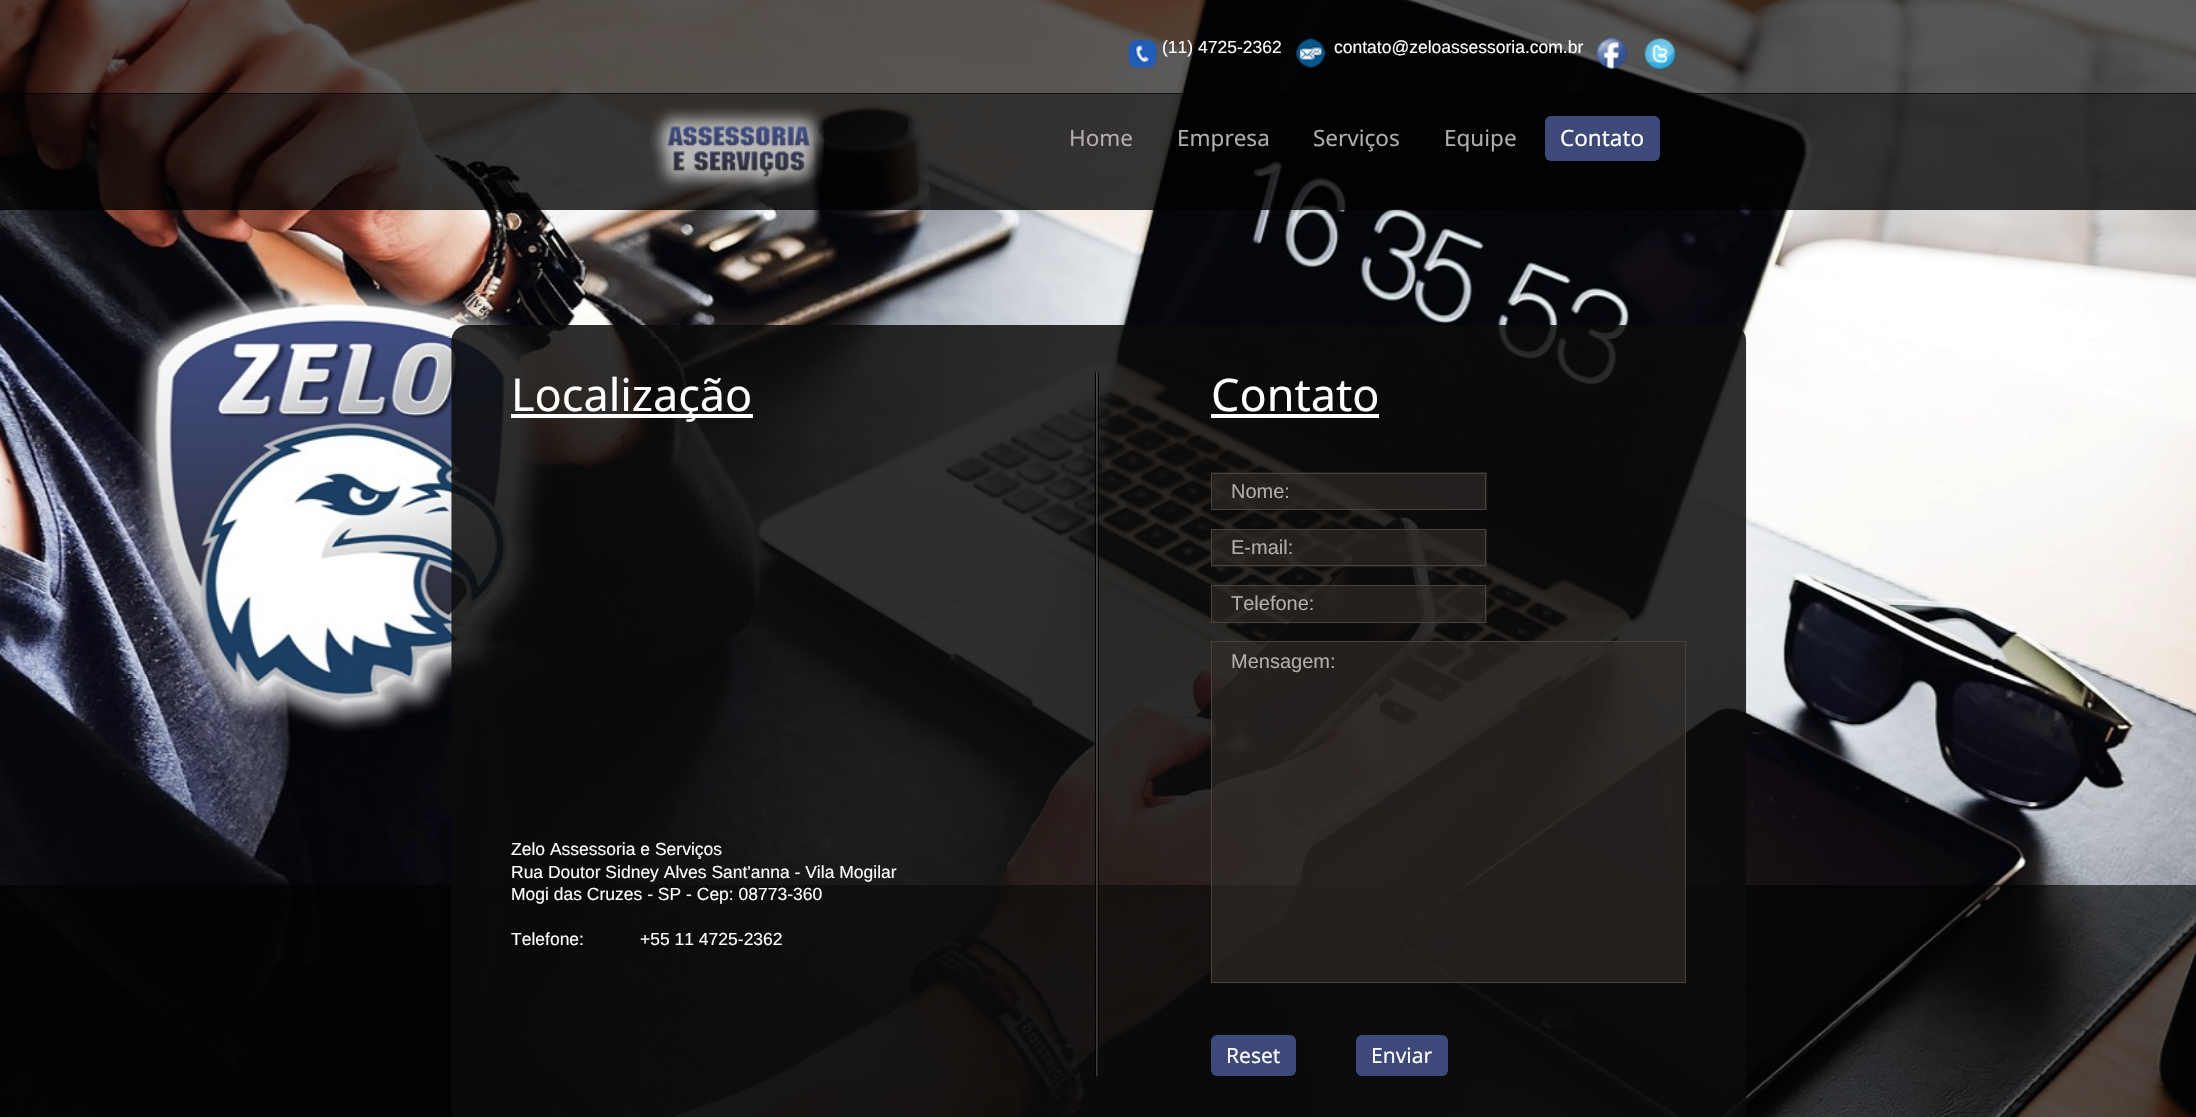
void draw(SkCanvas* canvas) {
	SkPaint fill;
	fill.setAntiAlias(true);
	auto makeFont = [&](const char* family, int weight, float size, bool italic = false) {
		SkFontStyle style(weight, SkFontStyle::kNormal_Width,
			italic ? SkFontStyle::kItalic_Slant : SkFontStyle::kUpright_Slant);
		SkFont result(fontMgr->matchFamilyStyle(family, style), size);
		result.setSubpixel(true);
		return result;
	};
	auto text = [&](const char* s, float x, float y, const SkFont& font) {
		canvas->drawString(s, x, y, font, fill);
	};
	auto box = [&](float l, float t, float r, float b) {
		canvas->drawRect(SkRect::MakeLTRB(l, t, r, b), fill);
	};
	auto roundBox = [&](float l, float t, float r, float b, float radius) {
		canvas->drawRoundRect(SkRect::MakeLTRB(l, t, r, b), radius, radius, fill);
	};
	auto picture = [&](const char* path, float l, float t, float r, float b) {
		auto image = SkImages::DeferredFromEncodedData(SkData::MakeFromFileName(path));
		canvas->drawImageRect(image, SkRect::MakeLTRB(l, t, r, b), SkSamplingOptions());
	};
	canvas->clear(0xFFFFFFFF);
	picture("image0.png", 0, 0, 2196, 1117);
	fill.setColor(0xA1000000);
	box(0, 885, 2196, 1117);
	box(0, 0, 2196, 94);
	picture("image1.png", 1128, 39, 1157, 68);
	picture("image2.png", 1296, 38, 1326, 68);
	picture("image3.png", 1596, 37, 1628, 69);
	picture("image4.png", 1644, 37, 1677, 70);
	fill.setColor(0xC9000000);
	box(0, 93, 2196, 210);
	picture("image5.png", 650, 107, 824, 194);
	fill.setColor(0xFF3D4A79);
	roundBox(1545, 116, 1660, 161, 6);
	picture("image6.png", 451, 325, 1747, 1117);
	picture("image7.png", 1095, 372, 1099, 1077);
	fill.setColor(0xFFFFFFFF);
	box(511, 414, 753, 418);
	box(1211, 414, 1379, 418);
	fill.setColor(0xA1302B28);
	box(1211, 472, 1487, 510);
	fill.setStyle(SkPaint::kStroke_Style);
	fill.setStrokeWidth(1);
	fill.setColor(0xFF49413D);
	canvas->drawRect(SkRect::MakeLTRB(1211.5f, 473.5f, 1485.5f, 509.5f), fill);
	fill.setStyle(SkPaint::kFill_Style);
	fill.setColor(0xA1302B28);
	box(1211, 529, 1487, 567);
	fill.setStyle(SkPaint::kStroke_Style);
	fill.setColor(0xFF49413D);
	canvas->drawRect(SkRect::MakeLTRB(1211.5f, 529.5f, 1485.5f, 565.5f), fill);
	fill.setStyle(SkPaint::kFill_Style);
	fill.setColor(0xA1302B28);
	box(1212, 585, 1487, 623);
	fill.setStyle(SkPaint::kStroke_Style);
	fill.setColor(0xFF49413D);
	canvas->drawRect(SkRect::MakeLTRB(1211.5f, 585.5f, 1485.5f, 622.5f), fill);
	fill.setStyle(SkPaint::kFill_Style);
	fill.setColor(0xA1302B28);
	canvas->drawRect(SkRect::MakeLTRB(1211.5f, 641.5f, 1685.5f, 982.5f), fill);
	fill.setStyle(SkPaint::kStroke_Style);
	fill.setColor(0xFF49413D);
	canvas->drawRect(SkRect::MakeLTRB(1211.5f, 641.5f, 1685.5f, 982.5f), fill);
	fill.setStyle(SkPaint::kFill_Style);
	fill.setColor(0xFF3D4A79);
	roundBox(1211, 1035, 1296, 1076, 6);
	roundBox(1356, 1035, 1448, 1076, 6);
	auto font1 = makeFont("Liberation Sans", 400, 17.5f);
	fill.setColor(0xFFFFFFFF);
	text("(11) 4725-2362", 1162, 53, font1);
	text("contato@zeloassessoria.com.br", 1334, 53, font1);
	auto font2 = makeFont("Noto Sans", 400, 22.5f);
	fill.setColor(0xFFB0ADAC);
	text("Home", 1069, 146, font2);
	text("Empresa", 1177, 146, font2);
	text("Serviços", 1313, 146, font2);
	text("Equipe", 1444, 146, font2);
	fill.setColor(0xFFFFFFFF);
	text("Contato", 1560, 146, font2);
	auto font3 = makeFont("Noto Sans", 400, 45);
	text("Localização", 511, 411, font3);
	text("Zelo Assessoria e Serviços", 511, 855, font1);
	text("Rua Doutor Sidney Alves Sant'anna - Vila Mogilar", 511, 878, font1);
	text("Mogi das Cruzes - SP - Cep: 08773-360", 511, 900, font1);
	text("Telefone:", 511, 945, font1);
	text("+55 11 4725-2362", 640, 945, font1);
	text("Contato", 1211, 411, font3);
	auto font4 = makeFont("Liberation Sans", 400, 20);
	fill.setColor(0xFFB0ADAC);
	text("Nome:", 1231, 498, font4);
	text("E-mail:", 1231, 554, font4);
	text("Telefone:", 1231, 610, font4);
	text("Mensagem:", 1231, 668, font4);
	auto font5 = makeFont("Noto Sans", 400, 21);
	fill.setColor(0xFFFFFFFF);
	text("Reset", 1226, 1063, font5);
	text("Enviar", 1371, 1063, font5);
}
